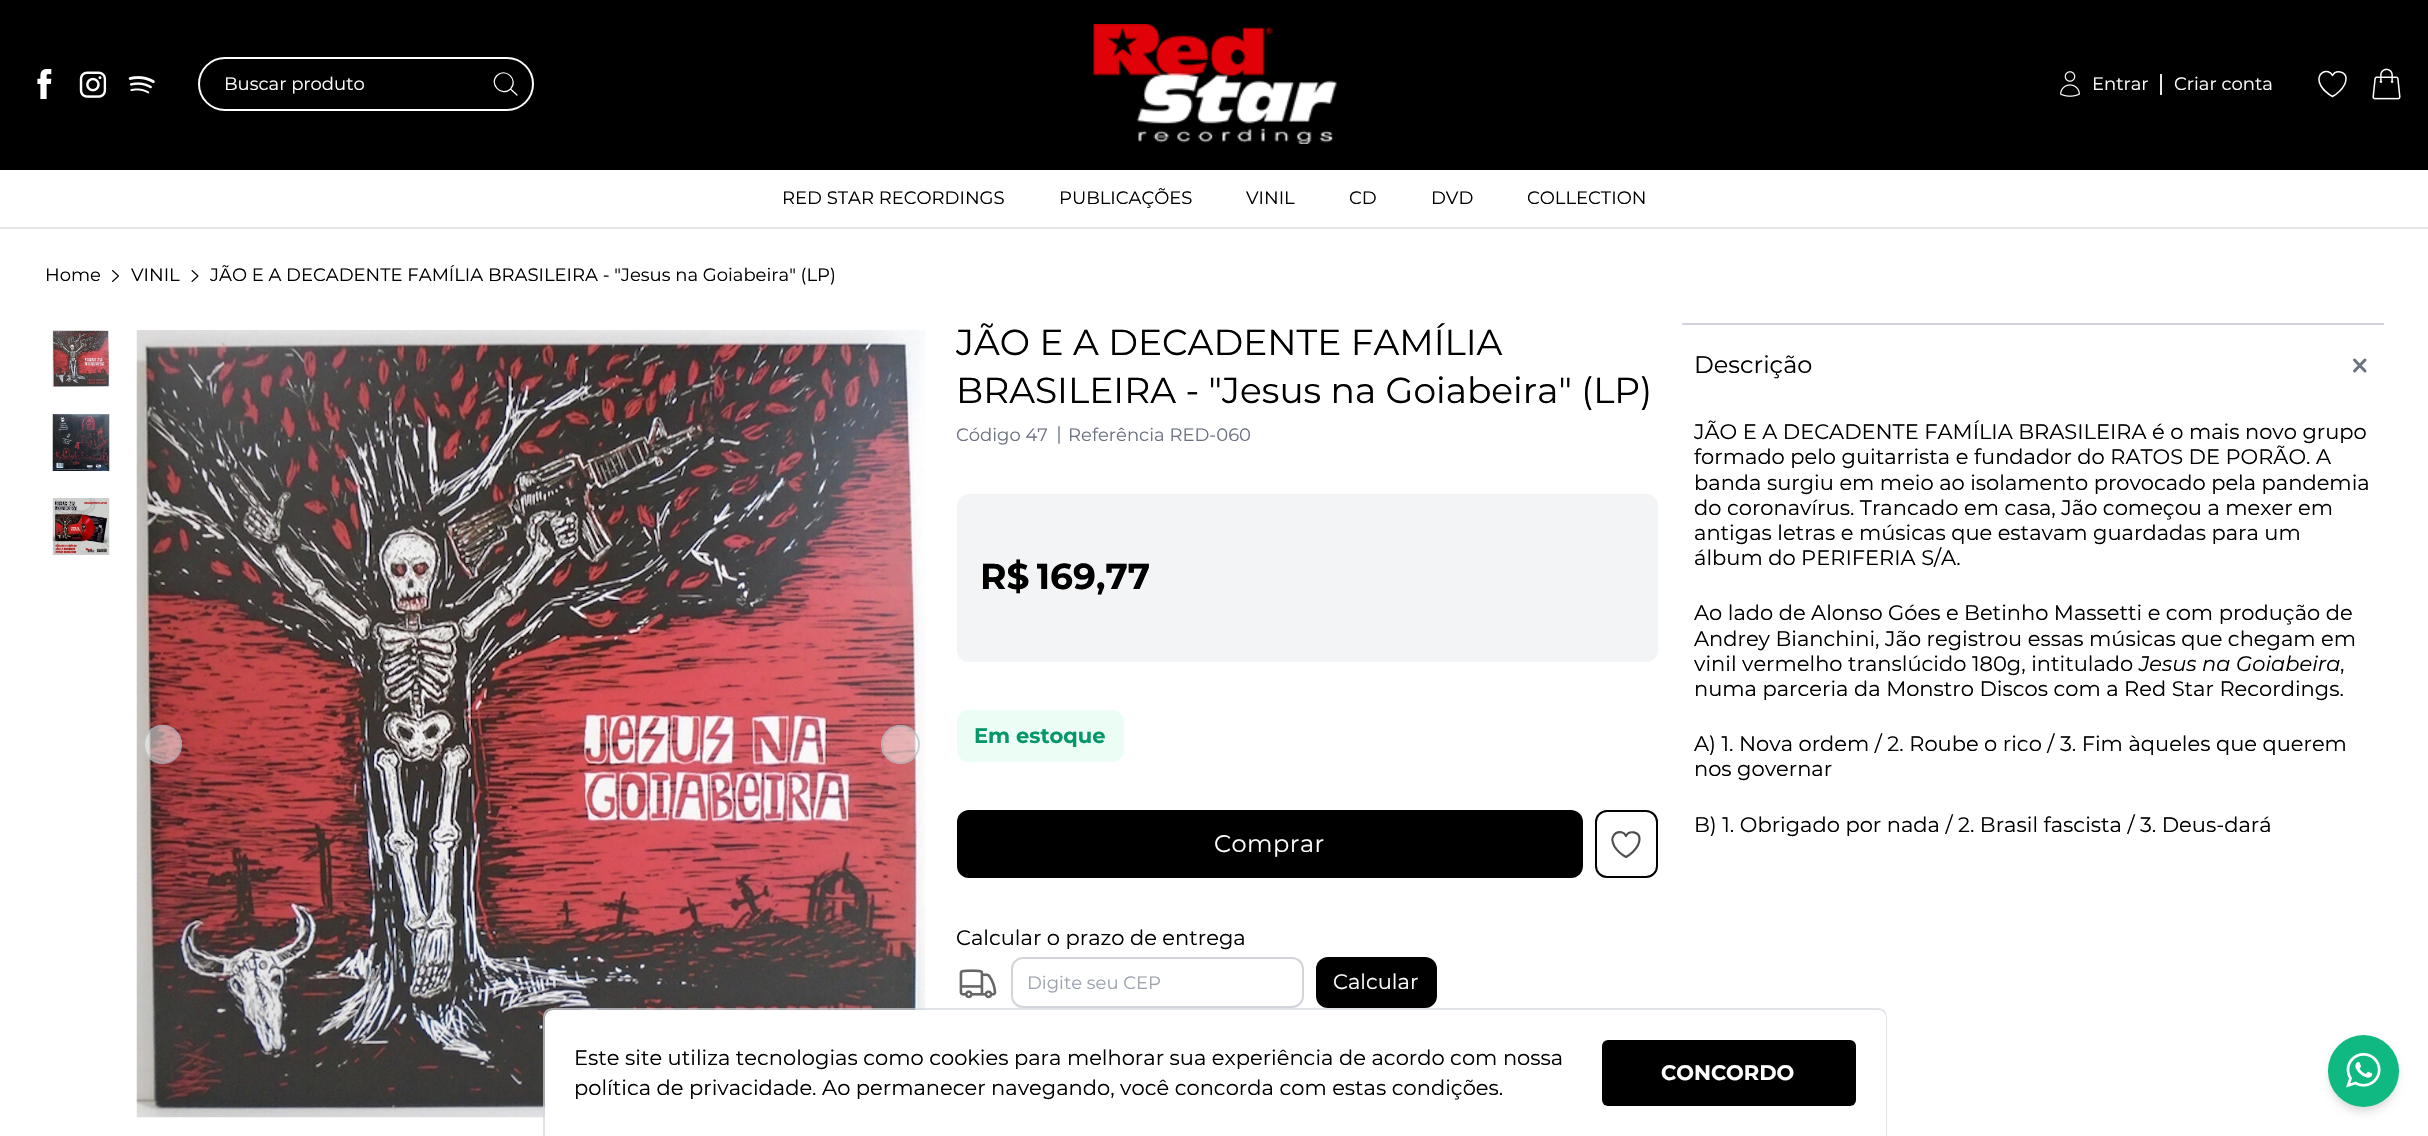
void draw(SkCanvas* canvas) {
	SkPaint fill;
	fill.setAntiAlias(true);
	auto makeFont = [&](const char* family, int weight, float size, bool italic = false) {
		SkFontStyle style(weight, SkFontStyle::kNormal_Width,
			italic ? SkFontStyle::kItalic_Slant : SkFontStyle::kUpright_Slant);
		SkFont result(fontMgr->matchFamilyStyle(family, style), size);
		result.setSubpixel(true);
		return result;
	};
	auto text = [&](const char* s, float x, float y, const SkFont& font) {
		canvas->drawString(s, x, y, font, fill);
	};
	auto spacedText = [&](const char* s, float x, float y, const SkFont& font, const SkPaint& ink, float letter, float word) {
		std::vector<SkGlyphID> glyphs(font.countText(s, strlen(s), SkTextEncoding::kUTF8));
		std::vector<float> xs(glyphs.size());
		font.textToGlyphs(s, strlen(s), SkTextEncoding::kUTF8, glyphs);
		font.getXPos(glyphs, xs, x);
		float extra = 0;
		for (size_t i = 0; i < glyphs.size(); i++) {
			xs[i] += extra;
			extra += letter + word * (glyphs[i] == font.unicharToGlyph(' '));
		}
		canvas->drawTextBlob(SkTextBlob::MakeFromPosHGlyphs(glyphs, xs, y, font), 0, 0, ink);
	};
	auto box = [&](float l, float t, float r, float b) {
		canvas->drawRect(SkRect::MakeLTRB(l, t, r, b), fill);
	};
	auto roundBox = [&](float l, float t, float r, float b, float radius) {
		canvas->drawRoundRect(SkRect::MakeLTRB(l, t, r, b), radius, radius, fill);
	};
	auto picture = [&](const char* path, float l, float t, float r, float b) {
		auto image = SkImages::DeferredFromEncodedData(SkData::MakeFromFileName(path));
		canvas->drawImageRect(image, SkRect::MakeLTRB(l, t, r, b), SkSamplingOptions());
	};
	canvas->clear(0xFFFFFFFF);
	fill.setColor(0xFF000000);
	box(0, 0, 2428, 170);
	picture("image0.png", 37, 69, 52, 99);
	picture("image1.png", 79, 71, 107, 98);
	picture("image2.png", 128, 76, 155, 94);
	fill.setStyle(SkPaint::kStroke_Style);
	fill.setStrokeWidth(2);
	fill.setColor(0xFFFFFFFF);
	canvas->drawRoundRect(SkRect::MakeLTRB(199, 58, 533, 110), 26, 26, fill);
	fill.setStrokeWidth(1.2f);
	fill.setStrokeCap(SkPaint::kRound_Cap);
	fill.setStrokeJoin(SkPaint::kRound_Join);
	canvas->drawPath(SkPathBuilder().moveTo(517, 95).lineTo(510.5f, 89).moveTo(510.5f, 89).cubicTo(519, 80, 505.5f, 67, 497, 75.5f).cubicTo(488.5f, 84, 501.5f, 97.5f, 510.5f, 89).close().detach(), fill);
	picture("image3.png", 1093, 24, 1337, 144);
	picture("image4.png", 2060, 71, 2080, 97);
	fill.setStyle(SkPaint::kFill_Style);
	fill.setColor(0xFFE5E7EB);
	box(2160, 74, 2162, 95);
	fill.setStyle(SkPaint::kStroke_Style);
	fill.setStrokeWidth(1.5f);
	fill.setColor(0xFFFFFFFF);
	canvas->drawPath(SkPathBuilder().moveTo(2346, 78.5f).cubicTo(2346, 71, 2335.5f, 69.5f, 2332.5f, 75.5f).cubicTo(2329, 67.5f, 2313.5f, 72, 2321, 86).cubicTo(2323.5f, 90, 2328, 94, 2332.5f, 96.5f).cubicTo(2332.5f, 96.5f, 2346, 89, 2346, 78.5f).close().detach(), fill);
	picture("image5.png", 2372, 68, 2401, 100);
	fill.setStyle(SkPaint::kFill_Style);
	fill.setColor(0xFFE5E7EB);
	box(0, 227, 2428, 229);
	fill.setStyle(SkPaint::kStroke_Style);
	fill.setStrokeWidth(1.1f);
	fill.setColor(0xFF000000);
	canvas->drawPath(SkPathBuilder().moveTo(112.5f, 270.5f).lineTo(118.5f, 276).lineTo(112.5f, 281.5f).detach(), fill);
	canvas->drawPath(SkPathBuilder().moveTo(192, 270.5f).lineTo(198, 276).lineTo(192, 281.5f).detach(), fill);
	picture("image6.png", 52, 330, 110, 387);
	picture("image7.png", 52, 414, 110, 471);
	picture("image8.png", 52, 498, 110, 555);
	picture("image9.png", 136, 330, 926, 1118);
	fill.setStyle(SkPaint::kFill_Style);
	fill.setColor(0x80FFFFFF);
	canvas->drawCircle(162.5f, 744.5f, 19.5f, fill);
	fill.setStyle(SkPaint::kStroke_Style);
	fill.setStrokeWidth(2);
	fill.setStrokeCap(SkPaint::kButt_Cap);
	fill.setStrokeJoin(SkPaint::kMiter_Join);
	fill.setColor(0x809CA3AF);
	canvas->drawCircle(162.5f, 744.5f, 18.5f, fill);
	fill.setStyle(SkPaint::kFill_Style);
	fill.setColor(0x80FFFFFF);
	canvas->drawCircle(900.5f, 744.5f, 19.5f, fill);
	fill.setStyle(SkPaint::kStroke_Style);
	fill.setColor(0x809CA3AF);
	canvas->drawCircle(900.5f, 744.5f, 18.5f, fill);
	fill.setStyle(SkPaint::kFill_Style);
	fill.setColor(0xFF9CA3AF);
	roundBox(1058, 426, 1060, 444, 1);
	fill.setColor(0xFFF3F4F6);
	roundBox(957, 494, 1658, 662, 12);
	fill.setColor(0xFFECFDF5);
	roundBox(957, 710, 1124, 762, 12);
	fill.setColor(0xFF000000);
	roundBox(957, 810, 1583, 878, 12);
	fill.setStyle(SkPaint::kStroke_Style);
	canvas->drawRoundRect(SkRect::MakeLTRB(1596, 811, 1657, 877), 11, 11, fill);
	fill.setStrokeWidth(2.2f);
	fill.setStrokeCap(SkPaint::kRound_Cap);
	fill.setStrokeJoin(SkPaint::kRound_Join);
	fill.setColor(0xFF4D4D4D);
	canvas->drawPath(SkPathBuilder().moveTo(1639.5f, 839).cubicTo(1639.5f, 831.5f, 1629, 830, 1626, 836).cubicTo(1622.5f, 828, 1607, 832.5f, 1614.5f, 846.5f).cubicTo(1617, 850.5f, 1621.5f, 854.5f, 1626, 857).cubicTo(1626, 857, 1639.5f, 849.5f, 1639.5f, 839).close().detach(), fill);
	picture("image10.png", 959, 969, 997, 999);
	fill.setStrokeWidth(2);
	fill.setStrokeCap(SkPaint::kButt_Cap);
	fill.setStrokeJoin(SkPaint::kMiter_Join);
	fill.setColor(0xFFD1D5DB);
	canvas->drawRoundRect(SkRect::MakeLTRB(1012, 958, 1303, 1007), 11, 11, fill);
	fill.setStyle(SkPaint::kFill_Style);
	fill.setColor(0xFF000000);
	roundBox(1316, 957, 1437, 1008, 12);
	fill.setColor(0xFFD1D5DB);
	box(1682, 323, 2384, 325);
	fill.setStyle(SkPaint::kStroke_Style);
	fill.setStrokeWidth(3);
	fill.setStrokeCap(SkPaint::kRound_Cap);
	fill.setStrokeJoin(SkPaint::kRound_Join);
	fill.setColor(0xFF6B7280);
	canvas->drawPath(SkPathBuilder().moveTo(2354.5f, 371).lineTo(2365, 360).moveTo(2354.5f, 360).lineTo(2365, 371).detach(), fill);
	fill.setStrokeWidth(2);
	fill.setStrokeCap(SkPaint::kButt_Cap);
	fill.setStrokeJoin(SkPaint::kMiter_Join);
	fill.setColor(0xB3D1D5DB);
	canvas->drawPath(SkPathBuilder().moveTo(552, 1009).lineTo(1878, 1009).cubicTo(1882.5f, 1009, 1886, 1012.5f, 1886, 1017).lineTo(1886, 1136).lineTo(544, 1136).lineTo(544, 1017).cubicTo(544, 1012.5f, 547.5f, 1009, 552, 1009).close().detach(), fill);
	fill.setStyle(SkPaint::kFill_Style);
	fill.setColor(0xFFFFFFFF);
	canvas->drawPath(SkPathBuilder().moveTo(553, 1010).lineTo(1878, 1010).cubicTo(1882.5f, 1010, 1886, 1013.5f, 1886, 1018).lineTo(1886, 1136).lineTo(545, 1136).lineTo(545, 1018).cubicTo(545, 1013.5f, 548.5f, 1010, 553, 1010).close().detach(), fill);
	fill.setColor(0xFF000000);
	roundBox(1602, 1040, 1856, 1106, 6);
	fill.setColor(0x0F000000);
	fill.setMaskFilter(SkMaskFilter::MakeBlur(kNormal_SkBlurStyle, 3));
	canvas->drawRoundRect(SkRect::MakeLTRB(2330, 1040, 2397, 1109), 33.5f, 33.5f, fill);
	fill.setMaskFilter(nullptr);
	fill.setColor(0x1A000000);
	fill.setMaskFilter(SkMaskFilter::MakeBlur(kNormal_SkBlurStyle, 4.5f));
	canvas->drawRoundRect(SkRect::MakeLTRB(2330, 1043, 2397, 1112), 33.5f, 33.5f, fill);
	fill.setMaskFilter(nullptr);
	fill.setColor(0xFF10B981);
	roundBox(2328, 1035, 2399, 1107, 35.5f);
	picture("image11.png", 2346, 1053, 2381, 1088);
	auto font1 = makeFont("Montserrat", 400, 18);
	fill.setColor(0xFFFFFFFF);
	text("Buscar produto", 224, 90, font1);
	text("Entrar", 2092, 90, font1);
	text("Criar conta", 2174, 90, font1);
	fill.setColor(0xFF000000);
	text("RED STAR RECORDINGS", 782, 204, font1);
	text("PUBLICAÇÕES", 1059, 204, font1);
	text("VINIL", 1246, 204, font1);
	text("CD", 1349, 204, font1);
	text("DVD", 1431, 204, font1);
	text("COLLECTION", 1527, 204, font1);
	text("Home", 45, 281, font1);
	text("VINIL", 131, 281, font1);
	text("JÃO E A DECADENTE FAMÍLIA BRASILEIRA - \"Jesus na Goiabeira\" (LP)", 210, 281, font1);
	auto font2 = makeFont("Montserrat", 400, 36);
	text("JÃO E A DECADENTE FAMÍLIA", 956, 355, font2);
	text("BRASILEIRA - \"Jesus na Goiabeira\" (LP)", 956, 403, font2);
	fill.setColor(0xFF6B7280);
	text("Código 47", 956, 441, font1);
	text("Referência RED-060", 1068, 441, font1);
	auto font3 = makeFont("Montserrat", 700, 36);
	fill.setColor(0xFF000000);
	text("R$", 980, 589, font3);
	canvas->save();
	canvas->clipRect(SkRect::MakeLTRB(1037, 557, 1151, 600));
	text("169,77", 1036, 589, font3);
	canvas->restore();
	auto font4 = makeFont("Montserrat", 700, 21);
	fill.setColor(0xFF059669);
	text("Em estoque", 974, 743, font4);
	auto font5 = makeFont("Montserrat", 400, 24);
	fill.setColor(0xFFFFFFFF);
	spacedText("Comprar", 1214, 852, font5, fill, 0.5f, 0);
	auto font6 = makeFont("Montserrat", 400, 21);
	fill.setColor(0xFF000000);
	text("Calcular o prazo de entrega", 956, 945, font6);
	fill.setColor(0xFF9CA3AF);
	text("Digite seu CEP", 1027, 989, font1);
	fill.setColor(0xFFFFFFFF);
	text("Calcular", 1333, 989, font6);
	fill.setColor(0xFF000000);
	text("Descrição", 1694, 373, font5);
	text("JÃO E A DECADENTE FAMÍLIA BRASILEIRA é o mais novo grupo", 1694, 439, font6);
	text("formado pelo guitarrista e fundador do RATOS DE PORÃO. A", 1694, 464, font6);
	text("banda surgiu em meio ao isolamento provocado pela pandemia", 1694, 490, font6);
	text("do coronavírus. Trancado em casa, Jão começou a mexer em", 1694, 515, font6);
	text("antigas letras e músicas que estavam guardadas para um", 1694, 540, font6);
	text("álbum do PERIFERIA S/A.", 1694, 565, font6);
	text("Ao lado de Alonso Góes e Betinho Massetti e com produção de", 1694, 620, font6);
	text("Andrey Bianchini, Jão registrou essas músicas que chegam em", 1694, 646, font6);
	text("vinil vermelho translúcido 180g, intitulado", 1694, 671, font6);
	auto font7 = makeFont("Montserrat", 400, 21, true);
	text("Jesus na Goiabeira", 2139, 671, font7);
	text(",", 2340, 671, font6);
	text("numa parceria da Monstro Discos com a Red Star Recordings.", 1694, 696, font6);
	text("A) 1. Nova ordem / 2. Roube o rico / 3. Fim àqueles que querem", 1694, 751, font6);
	text("nos governar", 1694, 776, font6);
	text("B) 1. Obrigado por nada / 2. Brasil fascista / 3. Deus-dará", 1694, 832, font6);
	text("Este site utiliza tecnologias como cookies para melhorar sua experiência de acordo com nossa", 574, 1065, font6);
	text("política de privacidade. Ao permanecer navegando, você concorda com estas condições.", 574, 1095, font6);
	fill.setColor(0xFFFFFFFF);
	text("CONCORDO", 1661, 1080, font4);
}
